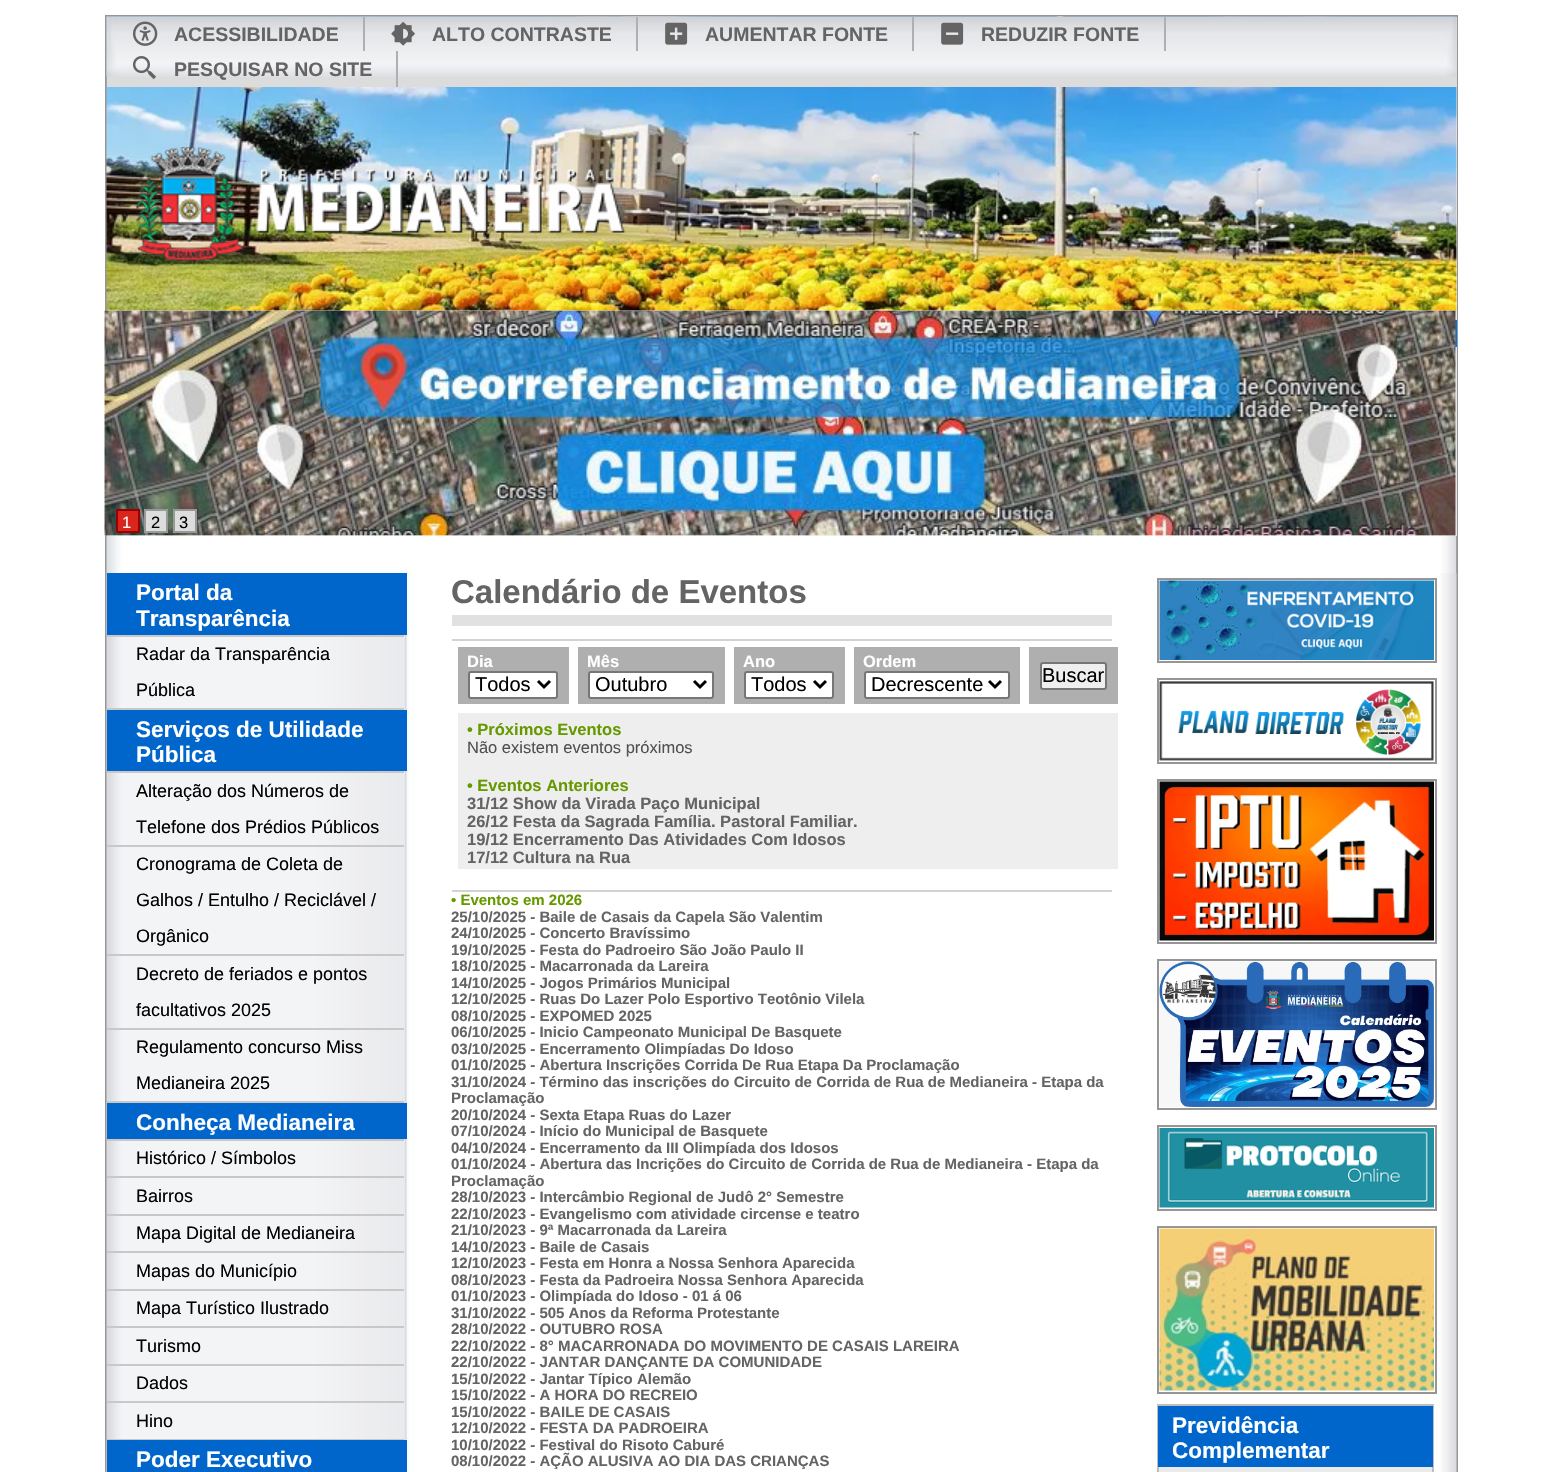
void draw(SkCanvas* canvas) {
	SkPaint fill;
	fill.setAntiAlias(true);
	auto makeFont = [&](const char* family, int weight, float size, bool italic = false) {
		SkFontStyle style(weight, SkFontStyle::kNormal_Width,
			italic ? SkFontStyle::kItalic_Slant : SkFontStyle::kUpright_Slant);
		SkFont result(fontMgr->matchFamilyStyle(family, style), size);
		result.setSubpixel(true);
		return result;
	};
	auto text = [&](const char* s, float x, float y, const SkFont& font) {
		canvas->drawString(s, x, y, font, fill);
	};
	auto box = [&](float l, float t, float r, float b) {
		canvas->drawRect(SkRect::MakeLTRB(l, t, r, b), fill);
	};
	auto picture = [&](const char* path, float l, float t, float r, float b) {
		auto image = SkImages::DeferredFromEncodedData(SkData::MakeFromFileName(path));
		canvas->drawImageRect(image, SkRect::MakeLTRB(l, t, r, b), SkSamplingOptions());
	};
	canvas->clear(0xFFFFFFFF);
	fill.setStyle(SkPaint::kStroke_Style);
	fill.setStrokeWidth(2);
	fill.setColor(0xFF969696);
	canvas->drawRect(SkRect::MakeLTRB(106, 16, 1457, 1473), fill);
	fill.setStyle(SkPaint::kFill_Style);
	fill.setColor(0xFFF0F0F0);
	box(107, 87, 1457, 311);
	picture("image0.png", 106, 16, 1457, 311);
	fill.setColor(0xFFDCDCDC);
	box(107, 17, 1457, 87);
	picture("image1.png", 106, 16, 1457, 77);
	fill.setColor(0xFFAFAFAF);
	box(363, 17, 365, 51);
	picture("image2.png", 132, 21, 158, 46);
	box(636, 17, 638, 51);
	picture("image3.png", 391, 21, 415, 46);
	box(912, 17, 914, 51);
	picture("image4.png", 665, 22, 688, 45);
	box(1164, 17, 1166, 51);
	picture("image5.png", 941, 22, 964, 45);
	box(396, 51, 398, 87);
	picture("image6.png", 132, 56, 156, 80);
	picture("image7.png", 136, 147, 626, 262);
	fill.setColor(0xFFE6E6E6);
	box(107, 311, 1457, 536);
	fill.setColor(0xFF0B73CF);
	box(1455, 320, 1457, 347);
	fill.setColor(0xFF646464);
	box(1456, 536, 1457, 573);
	picture("image9.png", 106, 535, 1457, 573);
	picture("image8.png", 104, 310, 1456, 536);
	fill.setColor(0xFFDA251C);
	canvas->drawRect(SkRect::MakeLTRB(117, 510, 139, 532), fill);
	fill.setStyle(SkPaint::kStroke_Style);
	fill.setColor(0xFF990000);
	canvas->drawRect(SkRect::MakeLTRB(117, 510, 139, 532), fill);
	fill.setStyle(SkPaint::kFill_Style);
	fill.setColor(0xFFDDDDDD);
	canvas->drawRect(SkRect::MakeLTRB(145, 510, 167, 532), fill);
	fill.setStyle(SkPaint::kStroke_Style);
	fill.setColor(0xFF999999);
	canvas->drawRect(SkRect::MakeLTRB(145, 510, 167, 532), fill);
	fill.setStyle(SkPaint::kFill_Style);
	fill.setColor(0xFFDDDDDD);
	canvas->drawRect(SkRect::MakeLTRB(174, 510, 196, 532), fill);
	fill.setStyle(SkPaint::kStroke_Style);
	fill.setColor(0xFF999999);
	canvas->drawRect(SkRect::MakeLTRB(174, 510, 196, 532), fill);
	picture("image10.png", 106, 573, 1457, 1472);
	fill.setStyle(SkPaint::kFill_Style);
	fill.setColor(0xFF0066CC);
	box(107, 573, 407, 635);
	fill.setColor(0xFFC8C8C8);
	box(107, 708, 404, 710);
	box(107, 635, 404, 637);
	fill.setColor(0xFF0066CC);
	box(107, 710, 407, 771);
	fill.setColor(0xFFC8C8C8);
	box(107, 1101, 404, 1103);
	box(107, 771, 404, 773);
	box(107, 845, 404, 847);
	box(107, 954, 404, 956);
	box(107, 1028, 404, 1030);
	fill.setColor(0xFF0066CC);
	box(107, 1103, 407, 1139);
	fill.setColor(0xFFC8C8C8);
	box(107, 1439, 404, 1440);
	box(107, 1139, 404, 1141);
	box(107, 1176, 404, 1178);
	box(107, 1214, 404, 1216);
	box(107, 1251, 404, 1253);
	box(107, 1289, 404, 1291);
	box(107, 1326, 404, 1328);
	box(107, 1364, 404, 1366);
	box(107, 1401, 404, 1403);
	fill.setColor(0xFF0066CC);
	box(107, 1440, 407, 1472);
	fill.setColor(0xFFE1E1E1);
	box(452, 615, 1112, 626);
	fill.setColor(0xFFD2D2D2);
	box(452, 639, 1112, 641);
	fill.setColor(0xFFAFAFAF);
	box(458, 647, 569, 704);
	fill.setColor(0xFFFFFFFF);
	canvas->drawRoundRect(SkRect::MakeLTRB(469, 672, 557, 698), 2, 2, fill);
	fill.setStyle(SkPaint::kStroke_Style);
	fill.setColor(0xFF767676);
	canvas->drawRoundRect(SkRect::MakeLTRB(469, 672, 557, 698), 2, 2, fill);
	fill.setStrokeWidth(3);
	fill.setColor(0xFF000000);
	canvas->drawPath(SkPathBuilder().moveTo(538, 681).lineTo(544, 687).lineTo(550, 681).detach(), fill);
	fill.setStyle(SkPaint::kFill_Style);
	fill.setColor(0xFFAFAFAF);
	box(578, 647, 725, 704);
	fill.setColor(0xFFFFFFFF);
	canvas->drawRoundRect(SkRect::MakeLTRB(589, 672, 713, 698), 2, 2, fill);
	fill.setStyle(SkPaint::kStroke_Style);
	fill.setStrokeWidth(2);
	fill.setColor(0xFF767676);
	canvas->drawRoundRect(SkRect::MakeLTRB(589, 672, 713, 698), 2, 2, fill);
	fill.setStrokeWidth(3);
	fill.setColor(0xFF000000);
	canvas->drawPath(SkPathBuilder().moveTo(694, 681).lineTo(700, 687).lineTo(706, 681).detach(), fill);
	fill.setStyle(SkPaint::kFill_Style);
	fill.setColor(0xFFAFAFAF);
	box(734, 647, 845, 704);
	fill.setColor(0xFFFFFFFF);
	canvas->drawRoundRect(SkRect::MakeLTRB(745, 672, 833, 698), 2, 2, fill);
	fill.setStyle(SkPaint::kStroke_Style);
	fill.setStrokeWidth(2);
	fill.setColor(0xFF767676);
	canvas->drawRoundRect(SkRect::MakeLTRB(745, 672, 833, 698), 2, 2, fill);
	fill.setStrokeWidth(3);
	fill.setColor(0xFF000000);
	canvas->drawPath(SkPathBuilder().moveTo(814, 681).lineTo(820, 687).lineTo(826, 681).detach(), fill);
	fill.setStyle(SkPaint::kFill_Style);
	fill.setColor(0xFFAFAFAF);
	box(854, 647, 1020, 704);
	fill.setColor(0xFFFFFFFF);
	canvas->drawRoundRect(SkRect::MakeLTRB(865, 672, 1009, 698), 2, 2, fill);
	fill.setStyle(SkPaint::kStroke_Style);
	fill.setStrokeWidth(2);
	fill.setColor(0xFF767676);
	canvas->drawRoundRect(SkRect::MakeLTRB(865, 672, 1009, 698), 2, 2, fill);
	fill.setStrokeWidth(3);
	fill.setColor(0xFF000000);
	canvas->drawPath(SkPathBuilder().moveTo(989, 681).lineTo(995, 687).lineTo(1001, 681).detach(), fill);
	fill.setStyle(SkPaint::kFill_Style);
	fill.setColor(0xFFAFAFAF);
	box(1029, 647, 1118, 704);
	fill.setColor(0xFFEFEFEF);
	canvas->drawRoundRect(SkRect::MakeLTRB(1041, 663, 1106, 689), 2, 2, fill);
	fill.setStyle(SkPaint::kStroke_Style);
	fill.setStrokeWidth(2);
	fill.setColor(0xFF767676);
	canvas->drawRoundRect(SkRect::MakeLTRB(1041, 663, 1106, 689), 2, 2, fill);
	fill.setStyle(SkPaint::kFill_Style);
	fill.setColor(0xFFEEEEEE);
	box(458, 713, 1118, 869);
	fill.setColor(0xFFD2D2D2);
	box(452, 890, 1112, 892);
	fill.setStyle(SkPaint::kStroke_Style);
	fill.setColor(0xFF969696);
	canvas->drawRect(SkRect::MakeLTRB(1158, 579, 1436, 662), fill);
	picture("image11.png", 1159, 580, 1434, 660);
	canvas->drawRect(SkRect::MakeLTRB(1158, 679, 1436, 763), fill);
	picture("image12.png", 1159, 681, 1434, 761);
	canvas->drawRect(SkRect::MakeLTRB(1158, 780, 1436, 943), fill);
	picture("image13.png", 1159, 781, 1434, 941);
	canvas->drawRect(SkRect::MakeLTRB(1158, 960, 1436, 1109), fill);
	picture("image14.png", 1159, 961, 1434, 1107);
	canvas->drawRect(SkRect::MakeLTRB(1158, 1126, 1436, 1210), fill);
	picture("image15.png", 1159, 1128, 1434, 1208);
	canvas->drawRect(SkRect::MakeLTRB(1158, 1227, 1436, 1393), fill);
	picture("image16.png", 1159, 1228, 1434, 1391);
	fill.setStyle(SkPaint::kFill_Style);
	fill.setColor(0xFFEBEBEB);
	box(1159, 1467, 1432, 1472);
	fill.setStyle(SkPaint::kStroke_Style);
	fill.setColor(0xFFBEBEBE);
	canvas->drawRect(SkRect::MakeLTRB(1158, 1405, 1433, 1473), fill);
	fill.setStyle(SkPaint::kFill_Style);
	fill.setColor(0xFF0066CC);
	box(1158, 1406, 1433, 1467);
	auto font1 = makeFont("Liberation Sans", 700, 19.5f);
	fill.setColor(0xFF646464);
	text("ACESSIBILIDADE", 174, 41, font1);
	text("ALTO CONTRASTE", 432, 41, font1);
	text("AUMENTAR FONTE", 705, 41, font1);
	text("REDUZIR FONTE", 981, 41, font1);
	text("PESQUISAR NO SITE", 174, 76, font1);
	auto font2 = makeFont("Liberation Sans", 400, 16.5f);
	fill.setColor(0xFFFFFFFF);
	text("1", 122, 528, font2);
	fill.setColor(0xFF000000);
	text("2", 151, 528, font2);
	text("3", 179, 528, font2);
	auto font3 = makeFont("Liberation Sans", 700, 22.5f);
	fill.setColor(0xFFFFFFFF);
	text("Portal da", 136, 600, font3);
	text("Transparência", 136, 626, font3);
	auto font4 = makeFont("Liberation Sans", 400, 18);
	fill.setColor(0xFF000000);
	text("Radar da Transparência", 136, 660, font4);
	text("Pública", 136, 696, font4);
	fill.setColor(0xFFFFFFFF);
	text("Serviços de Utilidade", 136, 737, font3);
	text("Pública", 136, 762, font3);
	fill.setColor(0xFF000000);
	text("Alteração dos Números de", 136, 797, font4);
	text("Telefone dos Prédios Públicos", 136, 833, font4);
	text("Cronograma de Coleta de", 136, 870, font4);
	text("Galhos / Entulho / Reciclável /", 136, 906, font4);
	text("Orgânico", 136, 942, font4);
	text("Decreto de feriados e pontos", 136, 980, font4);
	text("facultativos 2025", 136, 1016, font4);
	text("Regulamento concurso Miss", 136, 1053, font4);
	text("Medianeira 2025", 136, 1089, font4);
	fill.setColor(0xFFFFFFFF);
	text("Conheça Medianeira", 136, 1130, font3);
	fill.setColor(0xFF000000);
	text("Histórico / Símbolos", 136, 1164, font4);
	text("Bairros", 136, 1202, font4);
	text("Mapa Digital de Medianeira", 136, 1239, font4);
	text("Mapas do Município", 136, 1277, font4);
	text("Mapa Turístico Ilustrado", 136, 1314, font4);
	text("Turismo", 136, 1352, font4);
	text("Dados", 136, 1389, font4);
	text("Hino", 136, 1427, font4);
	fill.setColor(0xFFFFFFFF);
	text("Poder Executivo", 136, 1467, font3);
	auto font5 = makeFont("Liberation Sans", 700, 33);
	fill.setColor(0xFF646464);
	text("Calendário de Eventos", 451, 603, font5);
	auto font6 = makeFont("Liberation Sans", 700, 16.5f);
	fill.setColor(0xFFFFFFFF);
	text("Dia", 467, 667, font6);
	auto font7 = makeFont("Liberation Sans", 400, 20);
	fill.setColor(0xFF000000);
	text("Todos", 475, 691, font7);
	fill.setColor(0xFFFFFFFF);
	text("Mês", 587, 667, font6);
	canvas->save();
	canvas->clipRect(SkRect::MakeLTRB(596, 672, 689, 698));
	fill.setColor(0xFF000000);
	text("Outubro", 595, 691, font7);
	canvas->restore();
	fill.setColor(0xFFFFFFFF);
	text("Ano", 743, 667, font6);
	fill.setColor(0xFF000000);
	text("Todos", 751, 691, font7);
	fill.setColor(0xFFFFFFFF);
	text("Ordem", 863, 667, font6);
	fill.setColor(0xFF000000);
	text("Decrescente", 871, 691, font7);
	text("Buscar", 1042, 682, font7);
	fill.setColor(0xFF669900);
	text("• Próximos Eventos", 467, 735, font6);
	fill.setColor(0xFF505050);
	text("Não existem eventos próximos", 467, 753, font2);
	fill.setColor(0xFF669900);
	text("• Eventos Anteriores", 467, 791, font6);
	fill.setColor(0xFF646464);
	text("31/12 Show da Virada Paço Municipal", 467, 809, font6);
	text("26/12 Festa da Sagrada Família. Pastoral Familiar.", 467, 827, font6);
	text("19/12 Encerramento Das Atividades Com Idosos", 467, 845, font6);
	text("17/12 Cultura na Rua", 467, 863, font6);
	auto font8 = makeFont("Liberation Sans", 700, 15);
	fill.setColor(0xFF669900);
	text("• Eventos em 2026", 451, 905, font8);
	fill.setColor(0xFF646464);
	text("25/10/2025 - Baile de Casais da Capela São Valentim", 451, 922, font8);
	text("24/10/2025 - Concerto Bravíssimo", 451, 938, font8);
	text("19/10/2025 - Festa do Padroeiro São João Paulo II", 451, 955, font8);
	text("18/10/2025 - Macarronada da Lareira", 451, 971, font8);
	text("14/10/2025 - Jogos Primários Municipal", 451, 988, font8);
	text("12/10/2025 - Ruas Do Lazer Polo Esportivo Teotônio Vilela", 451, 1004, font8);
	text("08/10/2025 - EXPOMED 2025", 451, 1021, font8);
	text("06/10/2025 - Inicio Campeonato Municipal De Basquete", 451, 1037, font8);
	text("03/10/2025 - Encerramento Olimpíadas Do Idoso", 451, 1054, font8);
	text("01/10/2025 - Abertura Inscrições Corrida De Rua Etapa Da Proclamação", 451, 1070, font8);
	text("31/10/2024 - Término das inscrições do Circuito de Corrida de Rua de Medianeira - Etapa da", 451, 1087, font8);
	text("Proclamação", 451, 1103, font8);
	text("20/10/2024 - Sexta Etapa Ruas do Lazer", 451, 1120, font8);
	text("07/10/2024 - Início do Municipal de Basquete", 451, 1136, font8);
	text("04/10/2024 - Encerramento da III Olimpíada dos Idosos", 451, 1153, font8);
	text("01/10/2024 - Abertura das Incrições do Circuito de Corrida de Rua de Medianeira - Etapa da", 451, 1169, font8);
	text("Proclamação", 451, 1186, font8);
	text("28/10/2023 - Intercâmbio Regional de Judô 2° Semestre", 451, 1202, font8);
	text("22/10/2023 - Evangelismo com atividade circense e teatro", 451, 1219, font8);
	text("21/10/2023 - 9ª Macarronada da Lareira", 451, 1235, font8);
	text("14/10/2023 - Baile de Casais", 451, 1252, font8);
	text("12/10/2023 - Festa em Honra a Nossa Senhora Aparecida", 451, 1268, font8);
	text("08/10/2023 - Festa da Padroeira Nossa Senhora Aparecida", 451, 1285, font8);
	text("01/10/2023 - Olimpíada do Idoso - 01 á 06", 451, 1301, font8);
	text("31/10/2022 - 505 Anos da Reforma Protestante", 451, 1318, font8);
	text("28/10/2022 - OUTUBRO ROSA", 451, 1334, font8);
	text("22/10/2022 - 8° MACARRONADA DO MOVIMENTO DE CASAIS LAREIRA", 451, 1351, font8);
	text("22/10/2022 - JANTAR DANÇANTE DA COMUNIDADE", 451, 1367, font8);
	text("15/10/2022 - Jantar Típico Alemão", 451, 1384, font8);
	text("15/10/2022 - A HORA DO RECREIO", 451, 1400, font8);
	text("15/10/2022 - BAILE DE CASAIS", 451, 1417, font8);
	text("12/10/2022 - FESTA DA PADROEIRA", 451, 1433, font8);
	text("10/10/2022 - Festival do Risoto Caburé", 451, 1450, font8);
	text("08/10/2022 - AÇÃO ALUSIVA AO DIA DAS CRIANÇAS", 451, 1466, font8);
	fill.setColor(0xFFFFFFFF);
	text("Previdência", 1172, 1433, font3);
	text("Complementar", 1172, 1458, font3);
}
